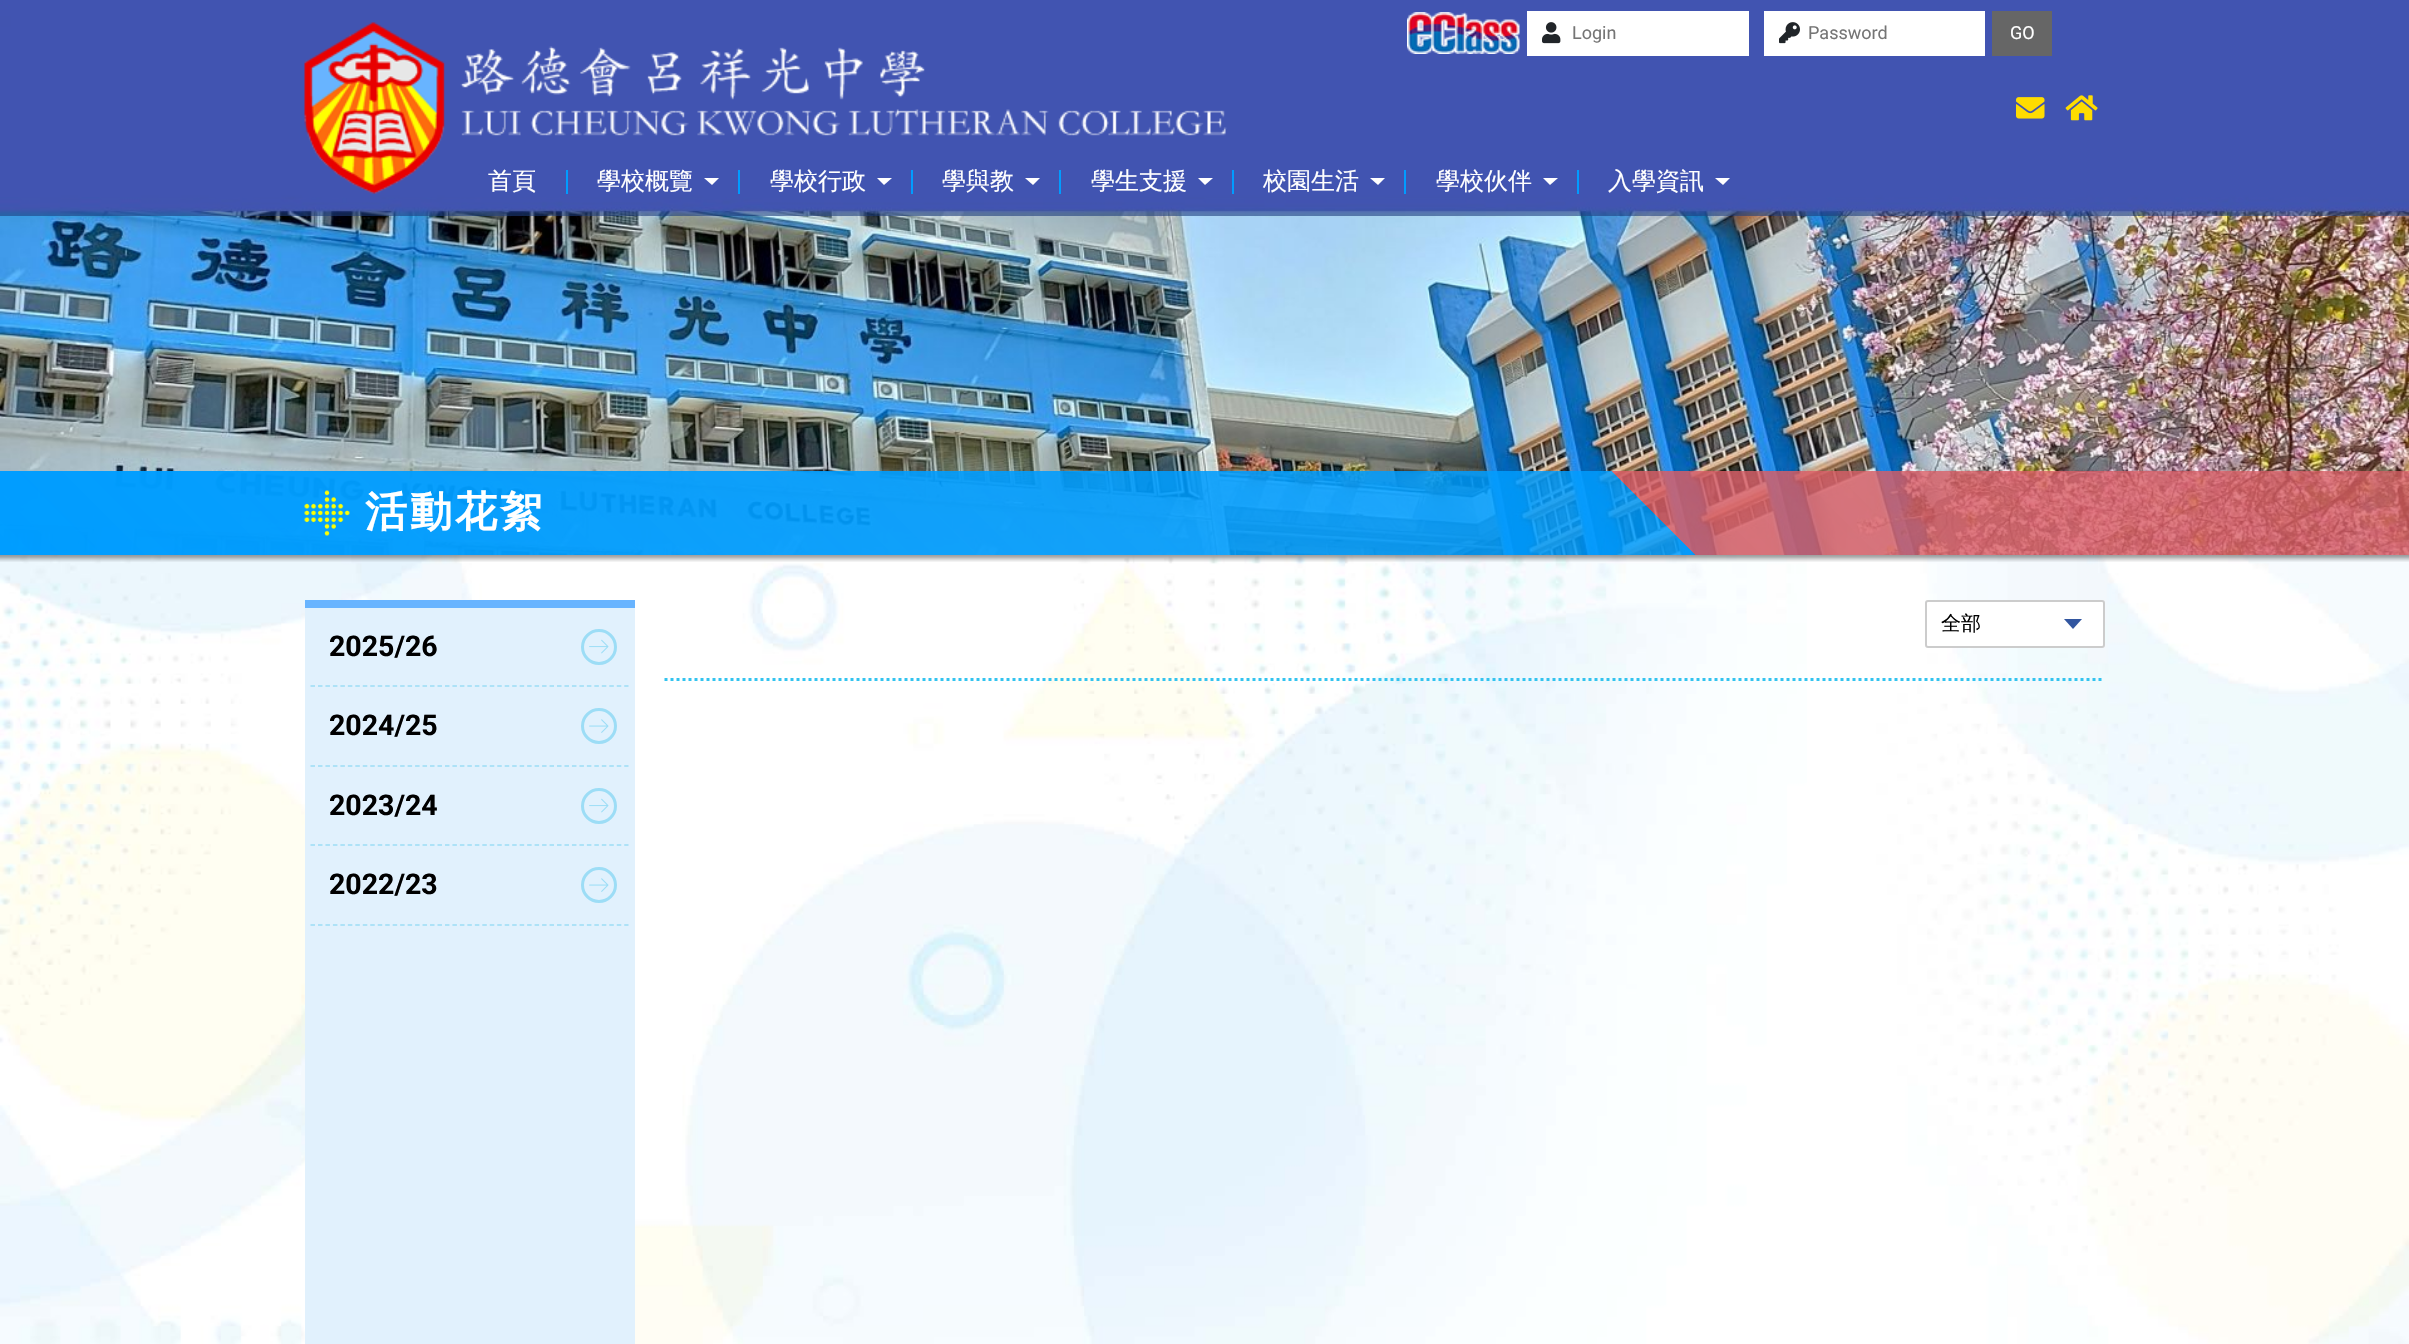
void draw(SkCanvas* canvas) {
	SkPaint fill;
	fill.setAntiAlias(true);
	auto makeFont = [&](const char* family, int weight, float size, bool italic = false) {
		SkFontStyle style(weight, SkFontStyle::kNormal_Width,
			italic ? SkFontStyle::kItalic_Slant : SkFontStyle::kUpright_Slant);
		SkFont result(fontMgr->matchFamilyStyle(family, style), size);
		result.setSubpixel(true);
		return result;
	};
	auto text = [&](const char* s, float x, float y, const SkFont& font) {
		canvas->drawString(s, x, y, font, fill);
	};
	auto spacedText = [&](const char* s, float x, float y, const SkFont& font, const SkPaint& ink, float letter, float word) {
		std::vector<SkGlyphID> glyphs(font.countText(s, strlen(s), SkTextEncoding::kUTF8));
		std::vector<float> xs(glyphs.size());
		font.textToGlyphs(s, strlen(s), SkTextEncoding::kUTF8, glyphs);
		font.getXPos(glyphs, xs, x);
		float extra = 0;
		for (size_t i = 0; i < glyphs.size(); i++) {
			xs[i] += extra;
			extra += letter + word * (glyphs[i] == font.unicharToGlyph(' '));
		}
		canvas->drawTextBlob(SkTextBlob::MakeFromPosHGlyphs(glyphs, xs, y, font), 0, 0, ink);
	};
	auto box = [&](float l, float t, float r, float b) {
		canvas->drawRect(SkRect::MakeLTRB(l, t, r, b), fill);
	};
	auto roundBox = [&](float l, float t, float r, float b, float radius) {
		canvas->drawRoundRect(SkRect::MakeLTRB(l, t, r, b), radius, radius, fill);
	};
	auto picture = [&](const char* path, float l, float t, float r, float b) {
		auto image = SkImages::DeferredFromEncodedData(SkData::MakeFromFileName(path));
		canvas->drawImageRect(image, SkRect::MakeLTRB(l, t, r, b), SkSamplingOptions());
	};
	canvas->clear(0xFFFFFFFF);
	picture("image6.png", 0, 0, 2409, 555);
	fill.setColor(0x991C3C7D);
	box(0, 0, 2409, 216);
	picture("image0.png", 304, 22, 1227, 194);
	picture("image1.png", 1407, 12, 1520, 54);
	fill.setColor(0xFFFFFFFF);
	box(1527, 11, 1749, 56);
	picture("image2.png", 1542, 22, 1561, 44);
	box(1764, 11, 1985, 56);
	picture("image3.png", 1779, 22, 1800, 44);
	fill.setColor(0xFF666666);
	box(1992, 11, 2052, 56);
	picture("image4.png", 2016, 97, 2045, 119);
	picture("image5.png", 2065, 95, 2098, 121);
	fill.setColor(0xFF009CFF);
	box(566, 170, 568, 194);
	box(738, 170, 740, 194);
	fill.setColor(0xFFFFFFFF);
	canvas->drawPath(SkPathBuilder().moveTo(704, 178).lineTo(719, 178).lineTo(712, 185).close().detach(), fill);
	fill.setColor(0xFF009CFF);
	box(911, 170, 913, 194);
	fill.setColor(0xFFFFFFFF);
	canvas->drawPath(SkPathBuilder().moveTo(877, 178).lineTo(892, 178).lineTo(884, 185).close().detach(), fill);
	fill.setColor(0xFF009CFF);
	box(1059, 170, 1061, 194);
	fill.setColor(0xFFFFFFFF);
	canvas->drawPath(SkPathBuilder().moveTo(1025, 178).lineTo(1040, 178).lineTo(1033, 185).close().detach(), fill);
	fill.setColor(0xFF009CFF);
	box(1232, 170, 1234, 194);
	fill.setColor(0xFFFFFFFF);
	canvas->drawPath(SkPathBuilder().moveTo(1198, 178).lineTo(1213, 178).lineTo(1205, 185).close().detach(), fill);
	fill.setColor(0xFF009CFF);
	box(1404, 170, 1406, 194);
	fill.setColor(0xFFFFFFFF);
	canvas->drawPath(SkPathBuilder().moveTo(1370, 178).lineTo(1385, 178).lineTo(1378, 185).close().detach(), fill);
	fill.setColor(0xFF009CFF);
	box(1577, 170, 1579, 194);
	fill.setColor(0xFFFFFFFF);
	canvas->drawPath(SkPathBuilder().moveTo(1543, 178).lineTo(1558, 178).lineTo(1550, 185).close().detach(), fill);
	canvas->drawPath(SkPathBuilder().moveTo(1715, 178).lineTo(1730, 178).lineTo(1723, 185).close().detach(), fill);
	picture("image7.png", 304, 490, 350, 536);
	picture("image8.png", 0, 555, 2409, 1344);
	picture("image9.png", 0, 555, 2409, 562);
	fill.setStyle(SkPaint::kStroke_Style);
	fill.setStrokeWidth(3);
	fill.setColor(0xFF32C3EF);
	fill.setPathEffect(SkDashPathEffect::Make({{3, 3}}, 0));
	canvas->drawPath(SkPathBuilder().moveTo(664.5f, 679.5f).lineTo(2104.5f, 679.5f).detach(), fill);
	fill.setPathEffect(nullptr);
	fill.setStyle(SkPaint::kFill_Style);
	fill.setColor(0xFFFFFFFF);
	roundBox(1925, 600, 2105, 648, 3);
	fill.setColor(0xFF3256A0);
	canvas->drawPath(SkPathBuilder().moveTo(2064, 619).lineTo(2082, 619).lineTo(2073, 629).close().detach(), fill);
	fill.setStyle(SkPaint::kStroke_Style);
	fill.setStrokeWidth(2);
	fill.setColor(0xFFCCCCCC);
	canvas->drawRoundRect(SkRect::MakeLTRB(1926, 601, 2104, 647), 2, 2, fill);
	fill.setStyle(SkPaint::kFill_Style);
	fill.setColor(0xFFE1F1FD);
	box(305, 608, 635, 1344);
	fill.setColor(0xFF68B4FF);
	box(305, 600, 635, 608);
	fill.setStyle(SkPaint::kStroke_Style);
	fill.setStrokeWidth(1.5f);
	fill.setColor(0xFF9CDDF6);
	fill.setPathEffect(SkDashPathEffect::Make({{4.5f, 2.97f}}, 0));
	canvas->drawPath(SkPathBuilder().moveTo(310.5f, 686).lineTo(628.5f, 686).detach(), fill);
	fill.setPathEffect(nullptr);
	fill.setStrokeWidth(3);
	canvas->drawCircle(599, 647, 16.5f, fill);
	picture("image10.png", 589, 639, 609, 654);
	fill.setStrokeWidth(1.5f);
	fill.setPathEffect(SkDashPathEffect::Make({{4.5f, 2.97f}}, 0));
	canvas->drawPath(SkPathBuilder().moveTo(310.5f, 766).lineTo(628.5f, 766).detach(), fill);
	fill.setPathEffect(nullptr);
	fill.setStrokeWidth(3);
	canvas->drawCircle(599, 726, 16.5f, fill);
	picture("image11.png", 589, 719, 609, 733);
	fill.setStrokeWidth(1.5f);
	fill.setPathEffect(SkDashPathEffect::Make({{4.5f, 2.97f}}, 0));
	canvas->drawPath(SkPathBuilder().moveTo(310.5f, 845).lineTo(628.5f, 845).detach(), fill);
	fill.setPathEffect(nullptr);
	fill.setStrokeWidth(3);
	canvas->drawCircle(599, 806, 16.5f, fill);
	picture("image10.png", 589, 798, 609, 813);
	fill.setStrokeWidth(1.5f);
	fill.setPathEffect(SkDashPathEffect::Make({{4.5f, 2.97f}}, 0));
	canvas->drawPath(SkPathBuilder().moveTo(310.5f, 925).lineTo(628.5f, 925).detach(), fill);
	fill.setPathEffect(nullptr);
	fill.setStrokeWidth(3);
	canvas->drawCircle(599, 885, 16.5f, fill);
	picture("image11.png", 589, 878, 609, 892);
	auto font1 = makeFont("Roboto", 400, 18);
	fill.setStyle(SkPaint::kFill_Style);
	fill.setColor(0xFF757575);
	text("Login", 1572, 39, font1);
	text("Password", 1808, 39, font1);
	fill.setColor(0xFFFFFFFF);
	text("GO", 2010, 39, font1);
	auto font2 = makeFont("WenQuanYi Zen Hei", 500, 24);
	text("首頁", 488, 189, font2);
	text("學校概覽", 597, 189, font2);
	text("學校行政", 770, 189, font2);
	text("學與教", 942, 189, font2);
	text("學生支援", 1091, 189, font2);
	text("校園生活", 1263, 189, font2);
	text("學校伙伴", 1436, 189, font2);
	text("入學資訊", 1608, 189, font2);
	auto font3 = makeFont("WenQuanYi Zen Hei", 700, 42);
	spacedText("活動花絮", 365, 526, font3, fill, 3, 0);
	auto font4 = makeFont("WenQuanYi Zen Hei", 500, 20);
	fill.setColor(0xFF000000);
	text("全部", 1941, 630, font4);
	auto font5 = makeFont("Roboto", 700, 28.5f);
	text("2025/26", 329, 656, font5);
	text("2024/25", 329, 735, font5);
	text("2023/24", 329, 815, font5);
	text("2022/23", 329, 894, font5);
}
